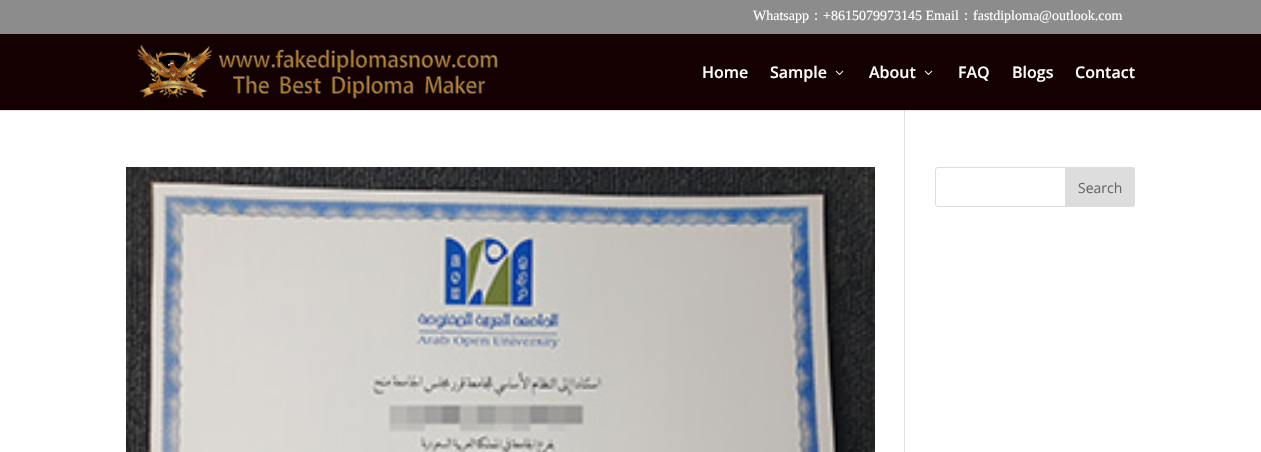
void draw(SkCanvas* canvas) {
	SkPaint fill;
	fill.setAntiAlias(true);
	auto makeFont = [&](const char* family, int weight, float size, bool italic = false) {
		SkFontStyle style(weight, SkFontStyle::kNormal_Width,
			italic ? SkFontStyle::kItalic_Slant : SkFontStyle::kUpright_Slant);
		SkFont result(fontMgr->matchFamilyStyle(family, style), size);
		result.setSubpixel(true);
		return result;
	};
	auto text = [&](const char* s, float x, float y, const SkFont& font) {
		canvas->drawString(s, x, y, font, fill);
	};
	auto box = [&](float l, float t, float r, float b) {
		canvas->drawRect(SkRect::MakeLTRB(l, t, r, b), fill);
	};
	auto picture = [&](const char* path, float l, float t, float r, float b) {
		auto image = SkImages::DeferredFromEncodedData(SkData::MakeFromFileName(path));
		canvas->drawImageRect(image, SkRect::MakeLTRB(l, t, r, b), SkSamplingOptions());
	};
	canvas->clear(0xFFFFFFFF);
	fill.setColor(0xFF8C8C8C);
	box(0, 0, 1261, 34);
	fill.setColor(0xFFE6E6E6);
	box(0, 110, 1261, 111);
	fill.setColor(0xFFE2E2E2);
	box(904, 109, 905, 452);
	fill.setColor(0xFF140000);
	box(0, 34, 1261, 110);
	picture("image0.png", 137, 44, 498, 99);
	picture("image1.png", 835, 70, 844, 75);
	picture("image1.png", 924, 70, 933, 75);
	fill.setColor(0xFFCBCBCB);
	box(904, 110, 905, 111);
	picture("image2.png", 126, 167, 875, 452);
	fill.setStyle(SkPaint::kStroke_Style);
	fill.setStrokeWidth(1);
	fill.setColor(0xFFDDDDDD);
	canvas->drawRoundRect(SkRect::MakeLTRB(935.5f, 167.5f, 1134.5f, 206.5f), 2.5f, 2.5f, fill);
	fill.setStyle(SkPaint::kFill_Style);
	canvas->drawPath(SkPathBuilder().moveTo(1065.5f, 167.5f).lineTo(1132, 167.5f).cubicTo(1133.5f, 167.5f, 1134.5f, 168.5f, 1134.5f, 170).lineTo(1134.5f, 204).cubicTo(1134.5f, 205.5f, 1133.5f, 206.5f, 1132, 206.5f).lineTo(1065.5f, 206.5f).close().detach(), fill);
	fill.setStyle(SkPaint::kStroke_Style);
	canvas->drawPath(SkPathBuilder().moveTo(1065.5f, 167.5f).lineTo(1132, 167.5f).cubicTo(1133.5f, 167.5f, 1134.5f, 168.5f, 1134.5f, 170).lineTo(1134.5f, 204).cubicTo(1134.5f, 205.5f, 1133.5f, 206.5f, 1132, 206.5f).lineTo(1065.5f, 206.5f).close().detach(), fill);
	auto font1 = makeFont("Liberation Serif", 400, 14);
	fill.setStyle(SkPaint::kFill_Style);
	fill.setColor(0xFFFFFFFF);
	text("Whatsapp", 753, 20, font1);
	auto font2 = makeFont("WenQuanYi Zen Hei", 500, 14);
	text("：", 809, 20, font2);
	text("+8615079973145 Email", 823, 20, font1);
	text("：", 959, 20, font2);
	text("fastdiploma@outlook.com", 973, 20, font1);
	auto font3 = makeFont("Open Sans", 600, 16);
	text("Home", 702, 78, font3);
	text("Sample", 770, 78, font3);
	text("About", 869, 78, font3);
	text("FAQ", 958, 78, font3);
	text("Blogs", 1012, 78, font3);
	text("Contact", 1075, 78, font3);
	auto font4 = makeFont("Open Sans", 400, 14);
	fill.setColor(0xFF666666);
	text("Search", 1078, 193, font4);
}
